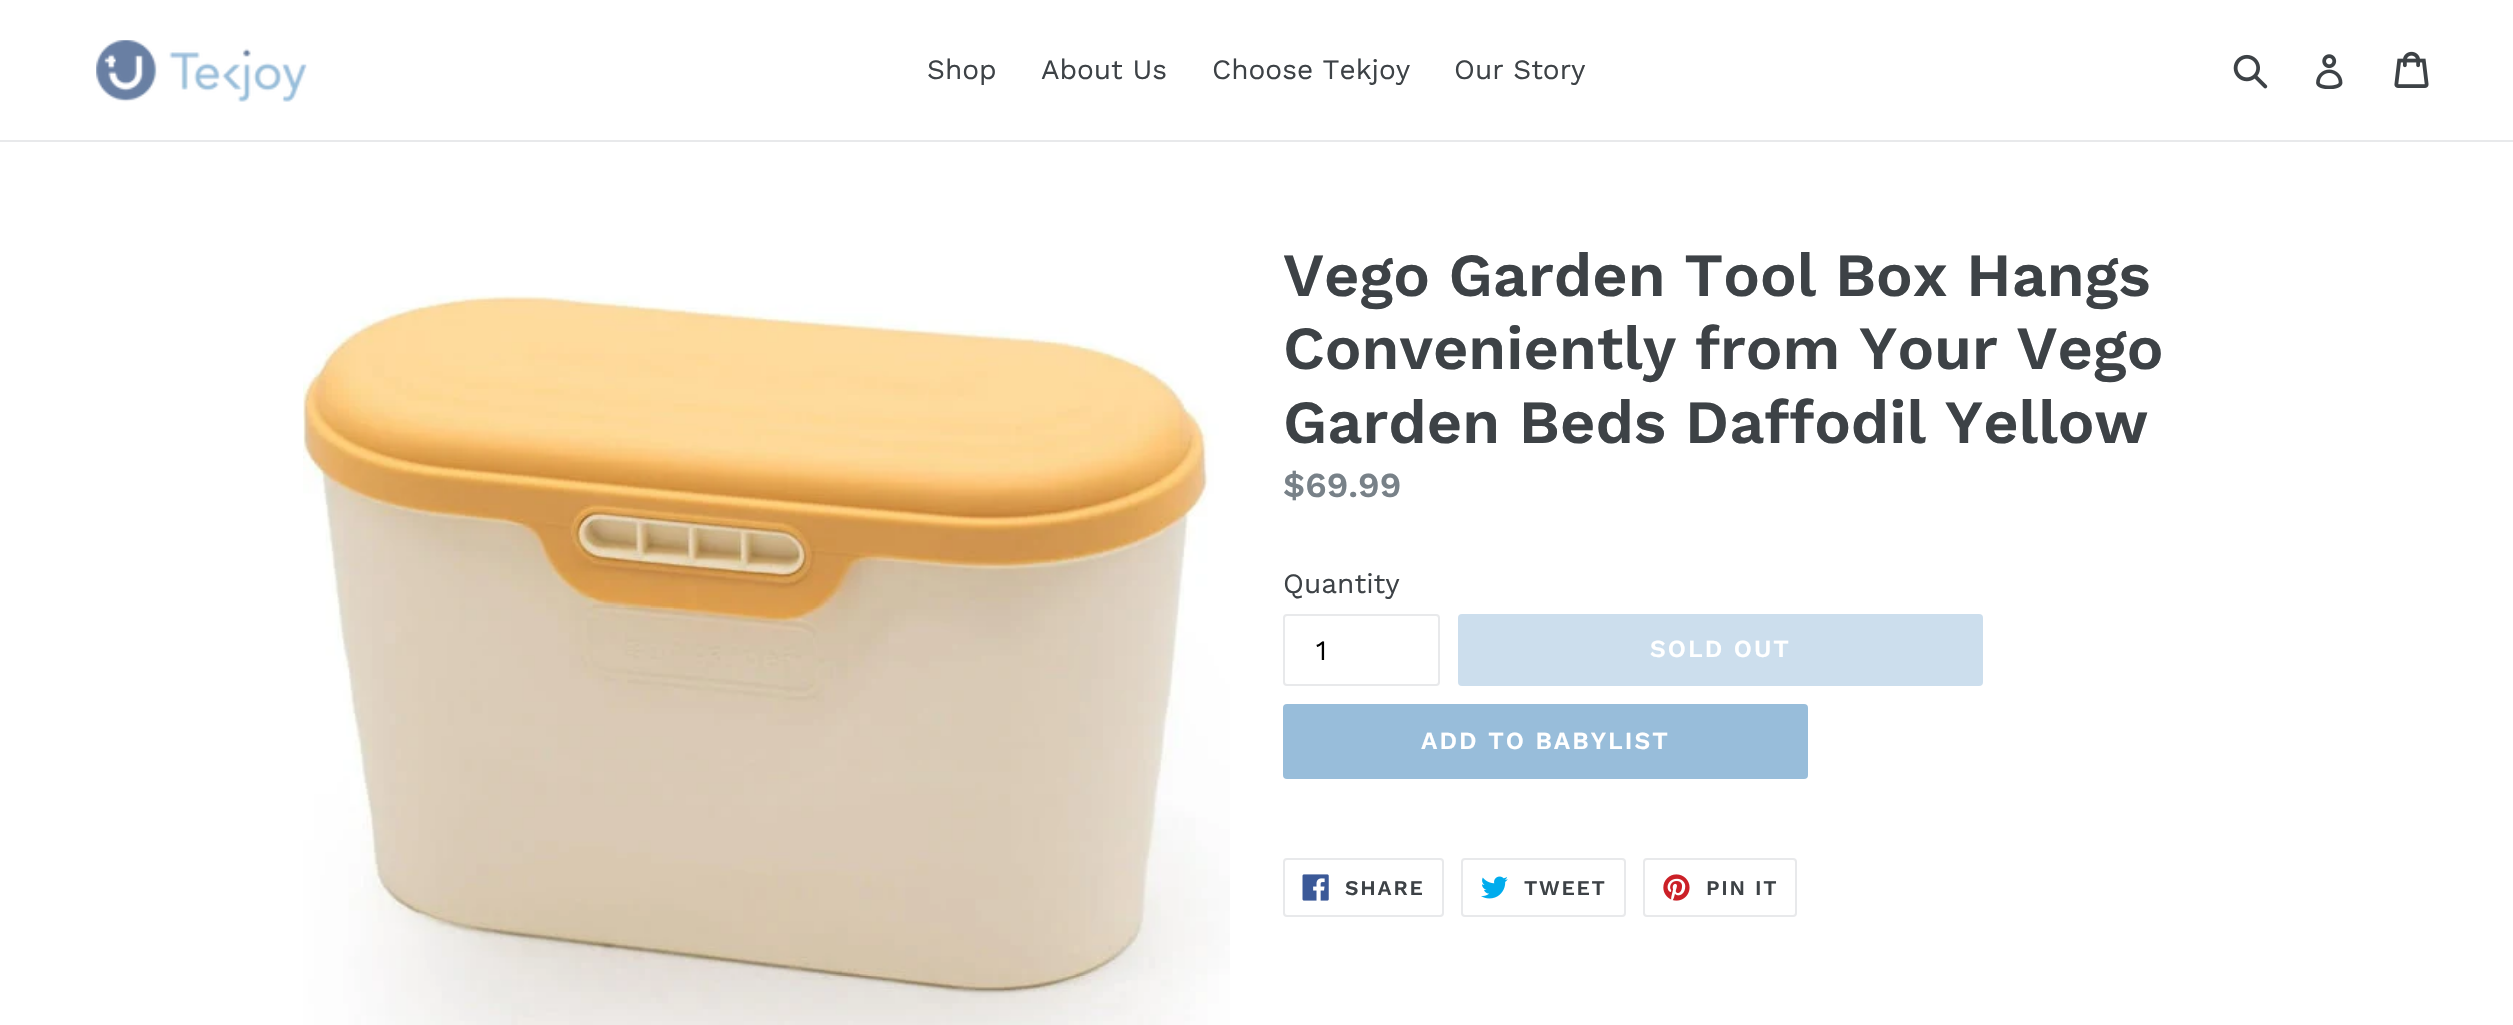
void draw(SkCanvas* canvas) {
	SkPaint fill;
	fill.setAntiAlias(true);
	auto makeFont = [&](const char* family, int weight, float size, bool italic = false) {
		SkFontStyle style(weight, SkFontStyle::kNormal_Width,
			italic ? SkFontStyle::kItalic_Slant : SkFontStyle::kUpright_Slant);
		SkFont result(fontMgr->matchFamilyStyle(family, style), size);
		result.setSubpixel(true);
		return result;
	};
	auto text = [&](const char* s, float x, float y, const SkFont& font) {
		canvas->drawString(s, x, y, font, fill);
	};
	auto spacedText = [&](const char* s, float x, float y, const SkFont& font, const SkPaint& ink, float letter, float word) {
		std::vector<SkGlyphID> glyphs(font.countText(s, strlen(s), SkTextEncoding::kUTF8));
		std::vector<float> xs(glyphs.size());
		font.textToGlyphs(s, strlen(s), SkTextEncoding::kUTF8, glyphs);
		font.getXPos(glyphs, xs, x);
		float extra = 0;
		for (size_t i = 0; i < glyphs.size(); i++) {
			xs[i] += extra;
			extra += letter + word * (glyphs[i] == font.unicharToGlyph(' '));
		}
		canvas->drawTextBlob(SkTextBlob::MakeFromPosHGlyphs(glyphs, xs, y, font), 0, 0, ink);
	};
	auto box = [&](float l, float t, float r, float b) {
		canvas->drawRect(SkRect::MakeLTRB(l, t, r, b), fill);
	};
	auto roundBox = [&](float l, float t, float r, float b, float radius) {
		canvas->drawRoundRect(SkRect::MakeLTRB(l, t, r, b), radius, radius, fill);
	};
	auto picture = [&](const char* path, float l, float t, float r, float b) {
		auto image = SkImages::DeferredFromEncodedData(SkData::MakeFromFileName(path));
		canvas->drawImageRect(image, SkRect::MakeLTRB(l, t, r, b), SkSamplingOptions());
	};
	canvas->clear(0xFFFFFFFF);
	fill.setColor(0xFFE8E9EB);
	box(0, 140, 2513, 142);
	picture("image0.png", 96, 40, 307, 102);
	picture("image1.png", 2233, 54, 2268, 89);
	picture("image2.png", 2316, 54, 2343, 89);
	picture("image3.png", 2394, 51, 2429, 88);
	picture("image4.png", 303, 295, 1230, 1025);
	fill.setStyle(SkPaint::kStroke_Style);
	fill.setStrokeWidth(2);
	canvas->drawRoundRect(SkRect::MakeLTRB(1284, 615, 1439, 685), 3, 3, fill);
	fill.setStyle(SkPaint::kFill_Style);
	fill.setColor(0xFFCCDEED);
	roundBox(1458, 614, 1983, 686, 4);
	fill.setColor(0xFF98BDDA);
	roundBox(1283, 704, 1808, 779, 4);
	fill.setStyle(SkPaint::kStroke_Style);
	fill.setColor(0xFFE8E9EB);
	canvas->drawRoundRect(SkRect::MakeLTRB(1284, 859, 1443, 916), 3, 3, fill);
	picture("image5.png", 1302, 874, 1329, 901);
	canvas->drawRoundRect(SkRect::MakeLTRB(1462, 859, 1625, 916), 3, 3, fill);
	picture("image6.png", 1481, 876, 1508, 899);
	canvas->drawRoundRect(SkRect::MakeLTRB(1644, 859, 1796, 916), 3, 3, fill);
	picture("image7.png", 1663, 874, 1690, 901);
	auto font1 = makeFont("Work Sans", 400, 28);
	fill.setStyle(SkPaint::kFill_Style);
	fill.setColor(0xFF3D4246);
	text("Shop", 927, 79, font1);
	text("About Us", 1041, 79, font1);
	text("Choose Tekjoy", 1212, 79, font1);
	text("Our Story", 1454, 79, font1);
	auto font2 = makeFont("Work Sans", 600, 61.25f);
	text("Vego Garden Tool Box Hangs", 1283, 296, font2);
	text("Conveniently from Your Vego", 1283, 369, font2);
	text("Garden Beds Daffodil Yellow", 1283, 443, font2);
	auto font3 = makeFont("Work Sans", 600, 35);
	fill.setColor(0xFF788188);
	text("$69.99", 1283, 497, font3);
	fill.setColor(0xFF3D4246);
	text("Quantity", 1283, 593, font1);
	fill.setColor(0xFF000000);
	text("1", 1316, 660, font1);
	auto font4 = makeFont("Work Sans", 600, 24.5f);
	fill.setColor(0xFFFFFFFF);
	spacedText("SOLD OUT", 1650, 657, font4, fill, 2, 0);
	spacedText("ADD TO BABYLIST", 1421, 749, font4, fill, 2, 0);
	auto font5 = makeFont("Work Sans", 600, 21);
	fill.setColor(0xFF3D4246);
	spacedText("SHARE", 1345, 895, font5, fill, 1.75f, 0);
	spacedText("TWEET", 1524, 895, font5, fill, 1.75f, 0);
	spacedText("PIN IT", 1706, 895, font5, fill, 1.75f, 0);
}
